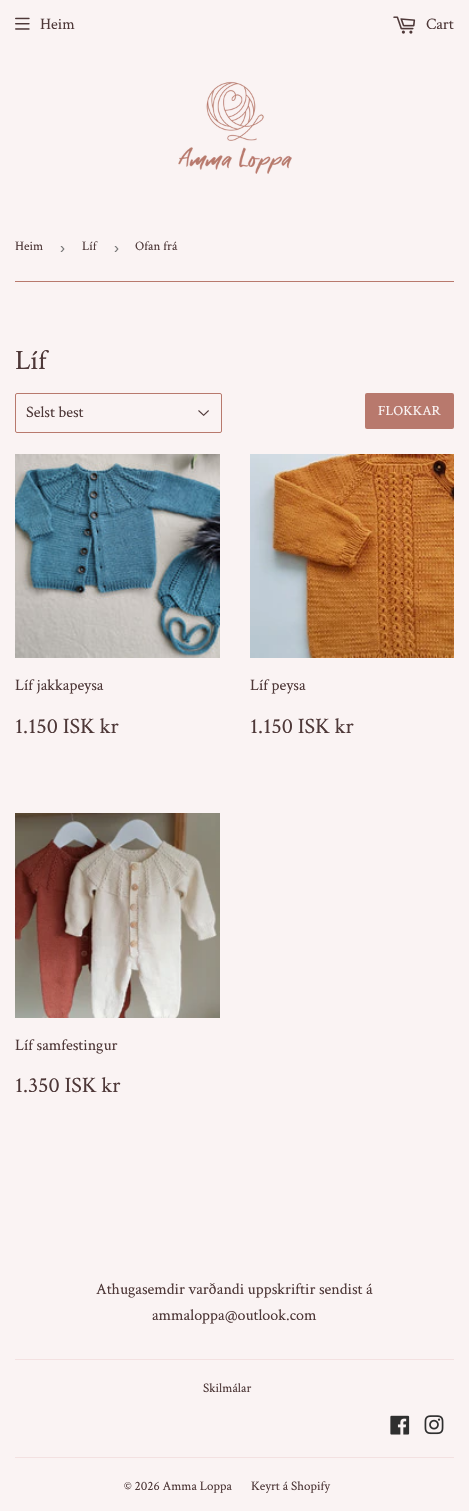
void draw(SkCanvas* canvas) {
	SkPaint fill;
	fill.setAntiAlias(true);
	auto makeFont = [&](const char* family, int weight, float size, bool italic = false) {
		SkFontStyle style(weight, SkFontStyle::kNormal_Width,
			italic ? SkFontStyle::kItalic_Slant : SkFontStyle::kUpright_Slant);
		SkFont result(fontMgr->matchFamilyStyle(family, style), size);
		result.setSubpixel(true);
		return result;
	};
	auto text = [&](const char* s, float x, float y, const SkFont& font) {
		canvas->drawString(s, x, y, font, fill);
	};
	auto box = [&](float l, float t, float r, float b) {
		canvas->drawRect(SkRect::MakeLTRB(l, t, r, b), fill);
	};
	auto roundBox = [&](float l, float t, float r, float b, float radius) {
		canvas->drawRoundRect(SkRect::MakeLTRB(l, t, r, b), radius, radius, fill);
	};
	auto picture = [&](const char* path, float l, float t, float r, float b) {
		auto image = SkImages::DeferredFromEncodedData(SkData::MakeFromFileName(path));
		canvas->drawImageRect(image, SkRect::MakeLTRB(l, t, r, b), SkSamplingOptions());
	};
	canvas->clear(0xFFFAF3F3);
	picture("image0.png", 15, 17, 30, 30);
	picture("image1.png", 393, 16, 416, 34);
	picture("image2.png", 178, 81, 292, 174);
	fill.setColor(0xFFB8796D);
	box(15, 281, 454, 282);
	picture("image3.png", 198, 410, 209, 416);
	fill.setStyle(SkPaint::kStroke_Style);
	fill.setStrokeWidth(1);
	canvas->drawRoundRect(SkRect::MakeLTRB(15.5f, 393.5f, 221.5f, 432.5f), 1.5f, 1.5f, fill);
	fill.setStyle(SkPaint::kFill_Style);
	roundBox(365, 393, 454, 429, 2);
	picture("image4.png", 15, 454, 220, 658);
	picture("image5.png", 250, 454, 454, 658);
	picture("image6.png", 15, 813, 220, 1018);
	fill.setColor(0xFFF3E1E1);
	box(15, 1359, 454, 1360);
	picture("image7.png", 390, 1415, 410, 1435);
	picture("image8.png", 424, 1415, 444, 1435);
	box(15, 1457, 454, 1458);
	auto font1 = makeFont("Crimson Text", 400, 16);
	fill.setColor(0xFF4E3838);
	text("Heim", 40, 29, font1);
	text("Cart", 426, 29, font1);
	auto font2 = makeFont("Crimson Text", 400, 13);
	text("Heim", 15, 250, font2);
	auto font3 = makeFont("Liberation Sans", 400, 15);
	fill.setColor(0xFF767676);
	text("›", 60, 253, font3);
	fill.setColor(0xFF4E3838);
	text("Líf", 82, 250, font2);
	fill.setColor(0xFF767676);
	text("›", 114, 253, font3);
	fill.setColor(0xFF4E3838);
	text("Ofan frá", 135, 250, font2);
	auto font4 = makeFont("Crimson Text", 400, 28);
	text("Líf", 15, 369, font4);
	text("Selst best", 26, 417, font1);
	auto font5 = makeFont("Crimson Text", 400, 14);
	fill.setColor(0xFFFAF3F3);
	text("FLOKKAR", 378, 415, font5);
	fill.setColor(0xFF4E3838);
	text("Líf jakkapeysa", 15, 690, font1);
	auto font6 = makeFont("Crimson Text", 400, 22);
	text("1.150 ISK kr", 15, 733, font6);
	text("Líf peysa", 250, 690, font1);
	text("1.150 ISK kr", 250, 733, font6);
	text("Líf samfestingur", 15, 1050, font1);
	text("1.350 ISK kr", 15, 1092, font6);
	text("Athugasemdir varðandi uppskriftir sendist á", 96, 1294, font1);
	text("ammaloppa@outlook.com", 152, 1320, font1);
	text("Skilmálar", 203, 1392, font2);
	text("© 2026 Amma Loppa", 124, 1490, font2);
	text("Keyrt á Shopify", 251, 1490, font2);
}
